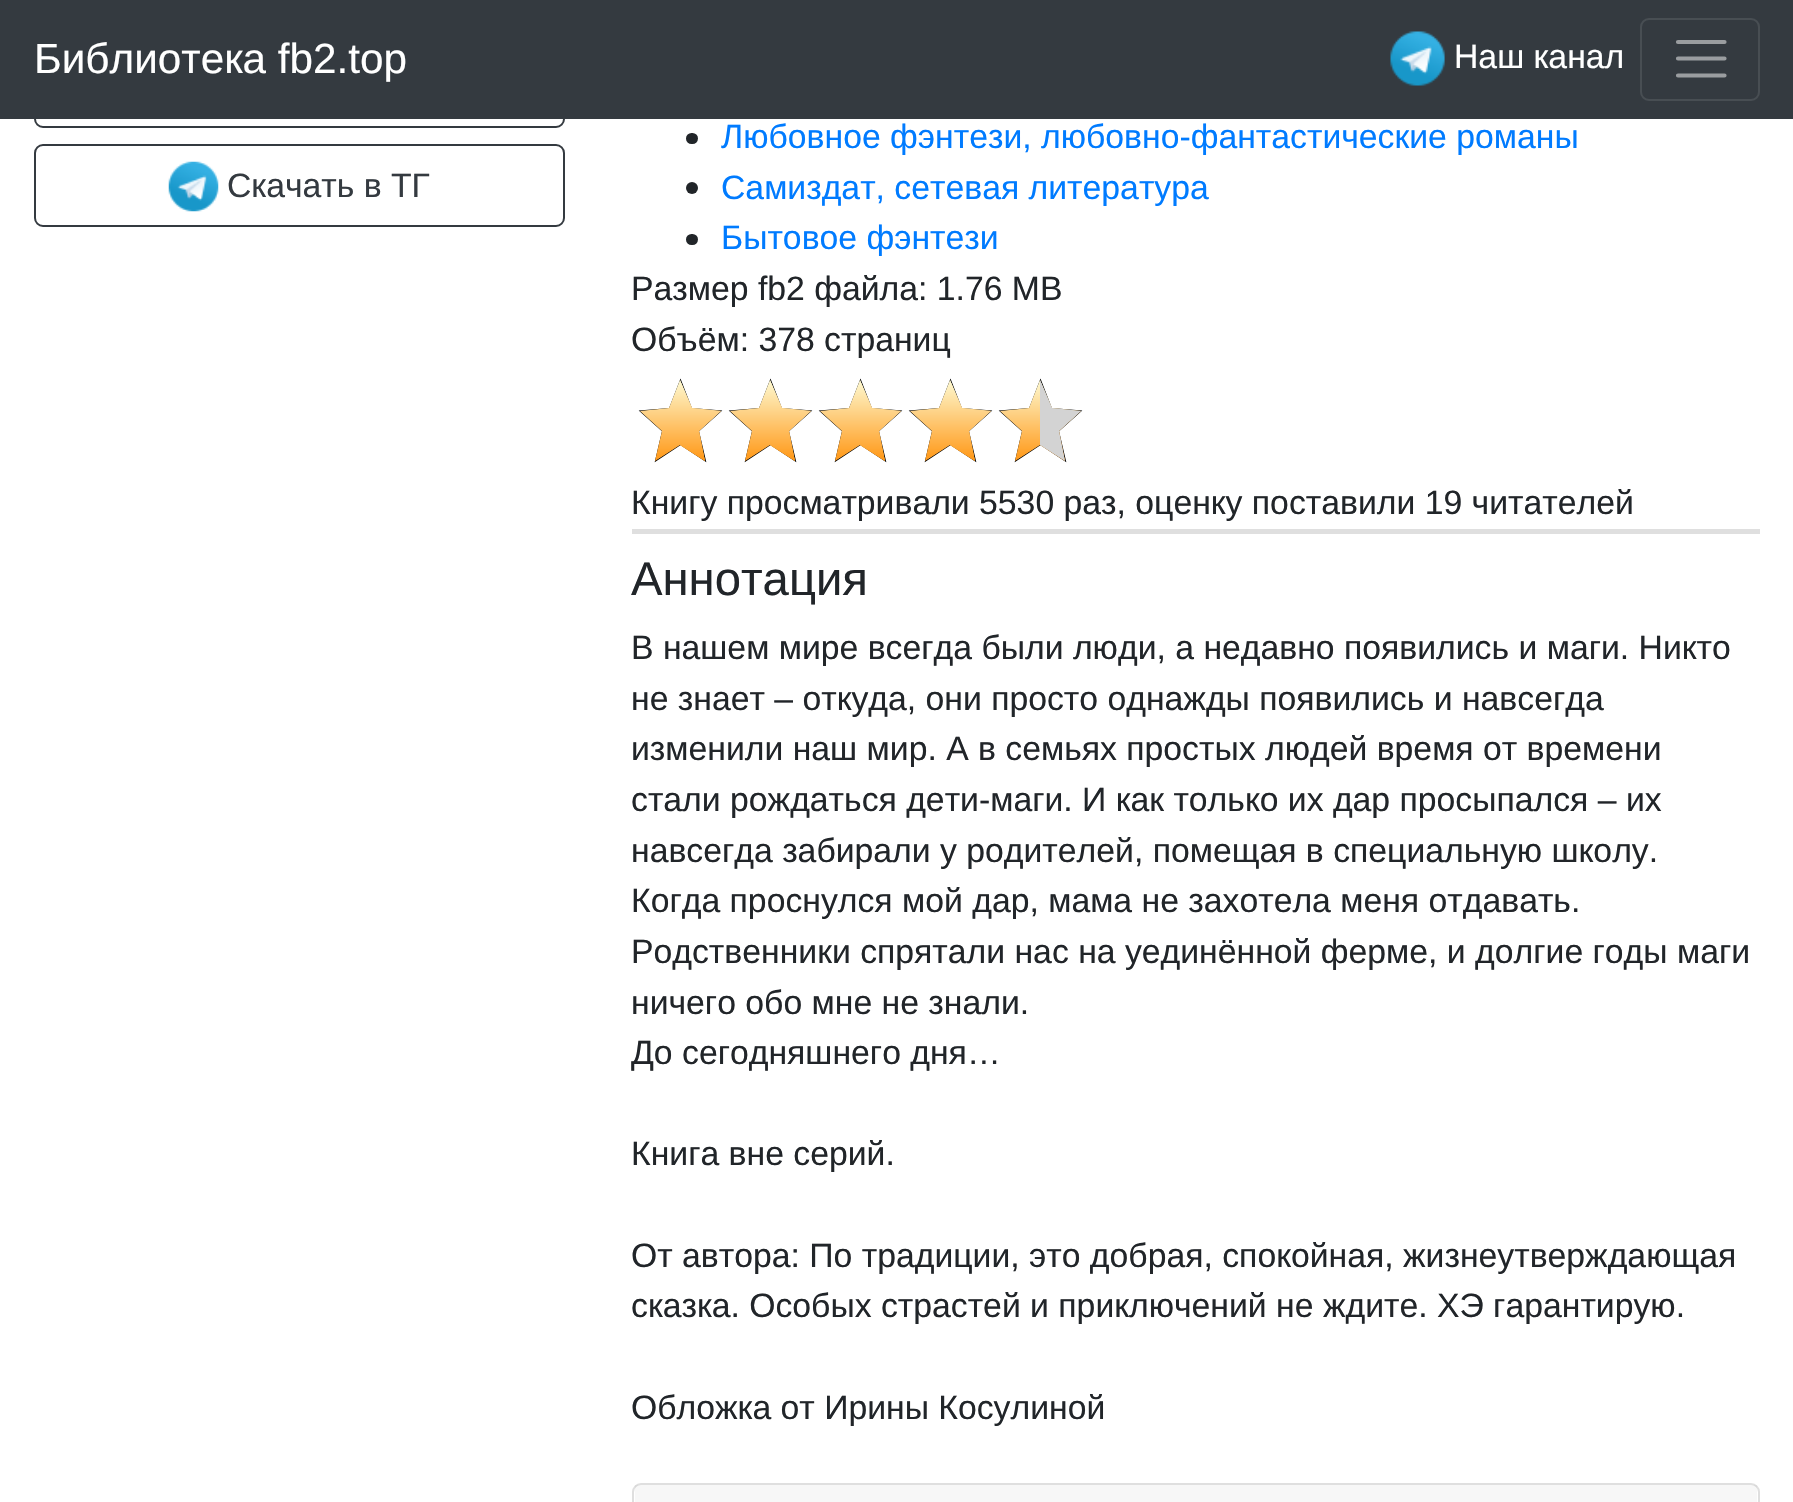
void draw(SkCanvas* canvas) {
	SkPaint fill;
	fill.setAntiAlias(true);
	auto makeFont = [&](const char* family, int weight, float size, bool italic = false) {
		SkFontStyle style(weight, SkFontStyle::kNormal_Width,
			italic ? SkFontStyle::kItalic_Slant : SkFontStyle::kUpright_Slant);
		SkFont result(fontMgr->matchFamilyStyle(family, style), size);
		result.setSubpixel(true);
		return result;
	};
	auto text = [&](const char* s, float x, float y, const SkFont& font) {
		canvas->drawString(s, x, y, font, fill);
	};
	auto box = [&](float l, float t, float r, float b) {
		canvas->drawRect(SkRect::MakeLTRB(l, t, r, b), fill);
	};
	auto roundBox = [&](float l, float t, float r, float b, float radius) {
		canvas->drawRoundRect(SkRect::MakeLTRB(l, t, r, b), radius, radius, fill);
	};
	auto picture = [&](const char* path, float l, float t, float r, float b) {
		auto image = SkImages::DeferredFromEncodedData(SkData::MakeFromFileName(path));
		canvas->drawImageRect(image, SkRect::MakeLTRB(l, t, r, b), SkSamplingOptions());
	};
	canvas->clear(0xFFFFFFFF);
	fill.setStyle(SkPaint::kStroke_Style);
	fill.setStrokeWidth(2);
	fill.setColor(0xFF343A40);
	canvas->drawRoundRect(SkRect::MakeLTRB(35, 48, 564, 127), 8, 8, fill);
	fill.setStyle(SkPaint::kFill_Style);
	box(0, 0, 1793, 119);
	picture("image0.png", 1390, 31, 1445, 86);
	fill.setStyle(SkPaint::kStroke_Style);
	fill.setColor(0xFF484E53);
	canvas->drawRoundRect(SkRect::MakeLTRB(1641, 19, 1759, 100), 8, 8, fill);
	fill.setStrokeWidth(4.2f);
	fill.setStrokeCap(SkPaint::kRound_Cap);
	fill.setColor(0xFF9A9DA0);
	canvas->drawPath(SkPathBuilder().moveTo(1678, 42).lineTo(1724.5f, 42).moveTo(1678, 58.5f).lineTo(1724.5f, 58.5f).moveTo(1678, 75.5f).lineTo(1724.5f, 75.5f).detach(), fill);
	fill.setStrokeWidth(2);
	fill.setStrokeCap(SkPaint::kButt_Cap);
	fill.setColor(0xFF343A40);
	canvas->drawRoundRect(SkRect::MakeLTRB(35, 145, 564, 226), 8, 8, fill);
	picture("image1.png", 168, 161, 219, 212);
	fill.setStyle(SkPaint::kFill_Style);
	fill.setColor(0xFF212529);
	roundBox(686, 133, 698, 144, 5.5f);
	canvas->drawCircle(692, 188, 6, fill);
	roundBox(686, 234, 698, 245, 5.5f);
	fill.setStyle(SkPaint::kStroke_Style);
	fill.setStrokeWidth(1.1f);
	fill.setColor(0xFF000000);
	canvas->drawPath(SkPathBuilder().moveTo(698.5f, 431).lineTo(721, 411).lineTo(691.5f, 408.5f).lineTo(680.5f, 380).lineTo(669.5f, 408.5f).lineTo(640, 411).lineTo(662.5f, 431).lineTo(655.5f, 461).lineTo(680.5f, 444.5f).lineTo(705.5f, 461).close().detach(), fill);
	fill.setStyle(SkPaint::kFill_Style);
	{
		const SkColor colors[] = {0xFFFEF7CD, 0xFFFF9511};
		const float stops[] = {0, 1};
		const SkPoint ends[] = {{623, 382}, {623, 463}};
		fill.setShader(SkGradientShader::MakeLinear(ends, colors, stops, 2, SkTileMode::kClamp));
		fill.setAlpha(255);
	}
	canvas->drawPath(SkPathBuilder().moveTo(699, 431).lineTo(721, 411).lineTo(692, 408).lineTo(680, 380).lineTo(669, 408).lineTo(640, 411).lineTo(662, 431).lineTo(655, 461).lineTo(680, 445).lineTo(705, 461).close().detach(), fill);
	canvas->drawPath(SkPathBuilder().moveTo(721, 411).lineTo(692, 408).lineTo(680, 380).lineTo(680, 445).lineTo(705, 461).lineTo(699, 431).close().detach(), fill);
	fill.setStyle(SkPaint::kStroke_Style);
	fill.setShader(nullptr);
	fill.setColor(0xFF000000);
	canvas->drawPath(SkPathBuilder().moveTo(788.5f, 431).lineTo(811, 411).lineTo(781.5f, 408.5f).lineTo(770.5f, 380).lineTo(759.5f, 408.5f).lineTo(730, 411).lineTo(752.5f, 431).lineTo(745.5f, 461).lineTo(770.5f, 444.5f).lineTo(795.5f, 461).close().detach(), fill);
	fill.setStyle(SkPaint::kFill_Style);
	{
		const SkColor colors[] = {0xFFFEF7CD, 0xFFFF9511};
		const float stops[] = {0, 1};
		const SkPoint ends[] = {{713, 382}, {713, 463}};
		fill.setShader(SkGradientShader::MakeLinear(ends, colors, stops, 2, SkTileMode::kClamp));
		fill.setAlpha(255);
	}
	canvas->drawPath(SkPathBuilder().moveTo(789, 431).lineTo(811, 411).lineTo(782, 408).lineTo(770, 380).lineTo(759, 408).lineTo(730, 411).lineTo(752, 431).lineTo(745, 461).lineTo(770, 445).lineTo(795, 461).close().detach(), fill);
	canvas->drawPath(SkPathBuilder().moveTo(811, 411).lineTo(782, 408).lineTo(770, 380).lineTo(770, 445).lineTo(795, 461).lineTo(789, 431).close().detach(), fill);
	fill.setStyle(SkPaint::kStroke_Style);
	fill.setShader(nullptr);
	fill.setColor(0xFF000000);
	canvas->drawPath(SkPathBuilder().moveTo(878.5f, 431).lineTo(901, 411).lineTo(871.5f, 408.5f).lineTo(860.5f, 380).lineTo(849.5f, 408.5f).lineTo(820, 411).lineTo(842.5f, 431).lineTo(835.5f, 461).lineTo(860.5f, 444.5f).lineTo(885.5f, 461).close().detach(), fill);
	fill.setStyle(SkPaint::kFill_Style);
	{
		const SkColor colors[] = {0xFFFEF7CD, 0xFFFF9511};
		const float stops[] = {0, 1};
		const SkPoint ends[] = {{803, 382}, {803, 463}};
		fill.setShader(SkGradientShader::MakeLinear(ends, colors, stops, 2, SkTileMode::kClamp));
		fill.setAlpha(255);
	}
	canvas->drawPath(SkPathBuilder().moveTo(879, 431).lineTo(901, 411).lineTo(872, 408).lineTo(860, 380).lineTo(849, 408).lineTo(820, 411).lineTo(842, 431).lineTo(835, 461).lineTo(860, 445).lineTo(885, 461).close().detach(), fill);
	canvas->drawPath(SkPathBuilder().moveTo(901, 411).lineTo(872, 408).lineTo(860, 380).lineTo(860, 445).lineTo(885, 461).lineTo(879, 431).close().detach(), fill);
	fill.setStyle(SkPaint::kStroke_Style);
	fill.setShader(nullptr);
	fill.setColor(0xFF000000);
	canvas->drawPath(SkPathBuilder().moveTo(968.5f, 431).lineTo(991, 411).lineTo(961.5f, 408.5f).lineTo(950.5f, 380).lineTo(939.5f, 408.5f).lineTo(910, 411).lineTo(932.5f, 431).lineTo(925.5f, 461).lineTo(950.5f, 444.5f).lineTo(975.5f, 461).close().detach(), fill);
	fill.setStyle(SkPaint::kFill_Style);
	{
		const SkColor colors[] = {0xFFFEF7CD, 0xFFFF9511};
		const float stops[] = {0, 1};
		const SkPoint ends[] = {{893, 382}, {893, 463}};
		fill.setShader(SkGradientShader::MakeLinear(ends, colors, stops, 2, SkTileMode::kClamp));
		fill.setAlpha(255);
	}
	canvas->drawPath(SkPathBuilder().moveTo(969, 431).lineTo(991, 411).lineTo(962, 408).lineTo(950, 380).lineTo(939, 408).lineTo(910, 411).lineTo(932, 431).lineTo(925, 461).lineTo(950, 445).lineTo(975, 461).close().detach(), fill);
	canvas->drawPath(SkPathBuilder().moveTo(991, 411).lineTo(962, 408).lineTo(950, 380).lineTo(950, 445).lineTo(975, 461).lineTo(969, 431).close().detach(), fill);
	fill.setStyle(SkPaint::kStroke_Style);
	fill.setShader(nullptr);
	fill.setColor(0xFF000000);
	canvas->drawPath(SkPathBuilder().moveTo(1058.5f, 431).lineTo(1081, 411).lineTo(1051.5f, 408.5f).lineTo(1040.5f, 380).lineTo(1029.5f, 408.5f).lineTo(1000, 411).lineTo(1022.5f, 431).lineTo(1015.5f, 461).lineTo(1040.5f, 444.5f).lineTo(1065.5f, 461).close().detach(), fill);
	fill.setStyle(SkPaint::kFill_Style);
	{
		const SkColor colors[] = {0xFFFEF7CD, 0xFFFF9511};
		const float stops[] = {0, 1};
		const SkPoint ends[] = {{983, 382}, {983, 463}};
		fill.setShader(SkGradientShader::MakeLinear(ends, colors, stops, 2, SkTileMode::kClamp));
		fill.setAlpha(255);
	}
	canvas->drawPath(SkPathBuilder().moveTo(1059, 431).lineTo(1081, 411).lineTo(1052, 408).lineTo(1040, 380).lineTo(1029, 408).lineTo(1000, 411).lineTo(1022, 431).lineTo(1015, 461).lineTo(1040, 445).lineTo(1065, 461).close().detach(), fill);
	fill.setShader(nullptr);
	fill.setColor(0xFFD3D3D3);
	canvas->drawPath(SkPathBuilder().moveTo(1081, 411).lineTo(1052, 408).lineTo(1040, 380).lineTo(1040, 445).lineTo(1065, 461).lineTo(1059, 431).close().detach(), fill);
	fill.setColor(0xFFDFDFDF);
	box(632, 529, 1760, 534);
	fill.setStyle(SkPaint::kStroke_Style);
	fill.setStrokeWidth(2);
	canvas->drawRoundRect(SkRect::MakeLTRB(633, 1484, 1759, 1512), 8, 8, fill);
	fill.setStyle(SkPaint::kFill_Style);
	fill.setColor(0x08000000);
	box(635, 1485, 1757, 1502);
	auto font1 = makeFont("Liberation Sans", 400, 42.25f);
	fill.setColor(0xFFFFFFFF);
	text("Библиотека fb2.top", 34, 73, font1);
	auto font2 = makeFont("Liberation Sans", 400, 33.75f);
	text("Наш канал", 1454, 68, font2);
	fill.setColor(0xFF343A40);
	text("Скачать в ТГ", 227, 197, font2);
	fill.setColor(0xFF007BFF);
	text("Любовное фэнтези, любовно-фантастические романы", 721, 148, font2);
	text("Самиздат, сетевая литература", 721, 199, font2);
	text("Бытовое фэнтези", 721, 249, font2);
	fill.setColor(0xFF212529);
	text("Размер fb2 файла: 1.76 MB", 631, 300, font2);
	text("Объём: 378 страниц", 631, 351, font2);
	text("Книгу просматривали 5530 раз, оценку поставили 19 читателей", 631, 514, font2);
	auto font3 = makeFont("Liberation Sans", 400, 47.25f);
	text("Аннотация", 631, 595, font3);
	text("В нашем мире всегда были люди, а недавно появились и маги. Никто", 631, 659, font2);
	text("не знает – откуда, они просто однажды появились и навсегда", 631, 710, font2);
	text("изменили наш мир. А в семьях простых людей время от времени", 631, 760, font2);
	text("стали рождаться дети-маги. И как только их дар просыпался – их", 631, 811, font2);
	text("навсегда забирали у родителей, помещая в специальную школу.", 631, 862, font2);
	text("Когда проснулся мой дар, мама не захотела меня отдавать.", 631, 912, font2);
	text("Родственники спрятали нас на уединённой ферме, и долгие годы маги", 631, 963, font2);
	text("ничего обо мне не знали.", 631, 1014, font2);
	text("До сегодняшнего дня…", 631, 1064, font2);
	text("Книга вне серий.", 631, 1165, font2);
	text("От автора: По традиции, это добрая, спокойная, жизнеутверждающая", 631, 1267, font2);
	text("сказка. Особых страстей и приключений не ждите. ХЭ гарантирую.", 631, 1317, font2);
	text("Обложка от Ирины Косулиной", 631, 1419, font2);
}
